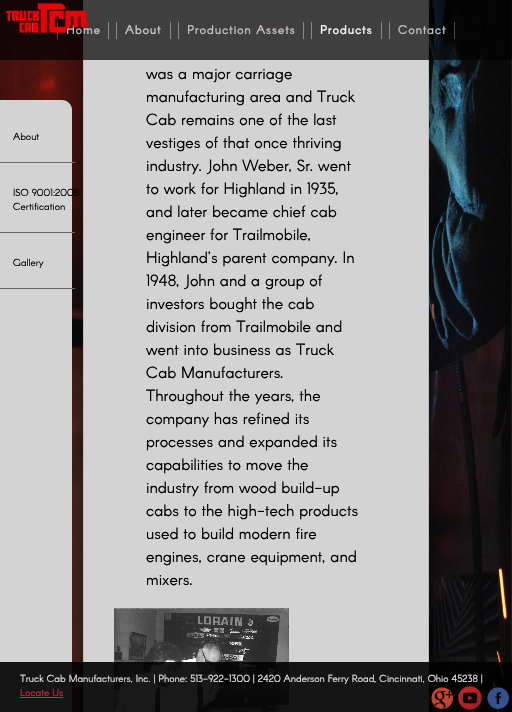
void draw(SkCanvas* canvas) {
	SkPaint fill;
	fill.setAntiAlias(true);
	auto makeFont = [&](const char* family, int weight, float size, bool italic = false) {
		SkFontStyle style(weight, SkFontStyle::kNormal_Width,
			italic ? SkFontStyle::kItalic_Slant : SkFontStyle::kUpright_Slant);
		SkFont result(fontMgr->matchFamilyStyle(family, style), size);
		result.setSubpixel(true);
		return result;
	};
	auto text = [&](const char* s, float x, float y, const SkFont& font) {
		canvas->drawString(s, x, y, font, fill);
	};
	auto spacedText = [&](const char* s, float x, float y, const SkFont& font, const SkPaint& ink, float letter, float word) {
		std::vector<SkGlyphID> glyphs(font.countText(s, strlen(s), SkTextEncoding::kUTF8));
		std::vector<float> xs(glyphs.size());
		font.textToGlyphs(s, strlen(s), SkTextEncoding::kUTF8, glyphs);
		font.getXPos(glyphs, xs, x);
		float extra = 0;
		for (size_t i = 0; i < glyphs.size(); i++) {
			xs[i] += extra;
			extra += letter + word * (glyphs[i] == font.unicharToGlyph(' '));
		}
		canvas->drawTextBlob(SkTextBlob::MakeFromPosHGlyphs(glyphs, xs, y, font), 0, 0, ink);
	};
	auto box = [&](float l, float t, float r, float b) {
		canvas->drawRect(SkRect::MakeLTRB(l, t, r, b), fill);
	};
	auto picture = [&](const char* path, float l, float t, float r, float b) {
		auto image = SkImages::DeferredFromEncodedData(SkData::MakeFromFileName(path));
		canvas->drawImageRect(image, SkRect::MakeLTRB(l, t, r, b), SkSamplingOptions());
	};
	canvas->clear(0xFFFFFFFF);
	picture("image0.png", 0, 0, 512, 712);
	fill.setColor(0xFF000000);
	fill.setMaskFilter(SkMaskFilter::MakeBlur(kNormal_SkBlurStyle, 25));
	canvas->drawRoundRect(SkRect::MakeLTRB(88, -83, 434, 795), 8, 8, fill);
	fill.setMaskFilter(nullptr);
	fill.setColor(0xFFD3D3D3);
	canvas->drawRect(SkRect::MakeLTRB(83.5f, -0.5f, 428.5f, 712.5f), fill);
	fill.setStyle(SkPaint::kStroke_Style);
	fill.setStrokeWidth(1);
	fill.setColor(0xFFBDBDBD);
	canvas->drawRect(SkRect::MakeLTRB(83.5f, -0.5f, 428.5f, 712.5f), fill);
	fill.setStyle(SkPaint::kFill_Style);
	fill.setColor(0xB3000000);
	box(0, 0, 512, 60);
	fill.setColor(0xFF898989);
	box(108, 22, 109, 39);
	fill.setColor(0xB3696969);
	box(57, 22, 58, 39);
	fill.setColor(0xFF898989);
	box(170, 22, 171, 39);
	box(116, 22, 117, 39);
	box(303, 22, 304, 39);
	box(178, 22, 179, 39);
	box(381, 22, 382, 39);
	box(311, 22, 312, 39);
	fill.setColor(0xB3696969);
	box(454, 22, 455, 39);
	fill.setColor(0xFF898989);
	box(389, 22, 390, 39);
	picture("image2.png", 114, 608, 289, 712);
	fill.setColor(0xFFD3D3D3);
	canvas->drawPath(SkPathBuilder().moveTo(0, 100).lineTo(62, 100).cubicTo(67.5f, 100, 72, 104.5f, 72, 110).lineTo(72, 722).lineTo(10, 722).cubicTo(4.5f, 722, 0, 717.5f, 0, 712).close().detach(), fill);
	fill.setColor(0xE6000000);
	box(0, 662, 512, 712);
	fill.setColor(0xFFDB274B);
	box(20, 697, 63, 698);
	picture("image3.png", 431, 687, 453, 709);
	picture("image4.png", 458, 686, 482, 710);
	picture("image5.png", 487, 687, 509, 709);
	fill.setColor(0xFF696969);
	box(0, 162, 75, 163);
	box(0, 232, 75, 233);
	box(0, 288, 75, 289);
	auto font1 = makeFont("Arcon", 700, 12);
	fill.setColor(0xFFBFBCBC);
	spacedText("Home", 66, 34, font1, fill, 1, 0);
	picture("image1.png", 5, 3, 88, 33);
	fill.setColor(0xFFC4C4C4);
	spacedText("About", 125, 34, font1, fill, 1, 0);
	fill.setColor(0xFFBFBCBC);
	spacedText("Production Assets", 187, 34, font1, fill, 1, 0);
	fill.setColor(0xFFF2F2F2);
	spacedText("Products", 320, 34, font1, fill, 1, 0);
	fill.setColor(0xFFBFBCBC);
	spacedText("Contact", 398, 34, font1, fill, 1, 0);
	auto font2 = makeFont("Arcon", 400, 16);
	fill.setColor(0xFF000000);
	text("was a major carriage", 146, 79, font2);
	text("manufacturing area and Truck", 146, 102, font2);
	text("Cab remains one of the last", 146, 125, font2);
	text("vestiges of that once thriving", 146, 148, font2);
	text("industry. John Weber, Sr. went", 146, 171, font2);
	text("to work for Highland in 1935,", 146, 194, font2);
	text("and later became chief cab", 146, 217, font2);
	text("engineer for Trailmobile,", 146, 240, font2);
	text("Highland’s parent company. In", 146, 263, font2);
	text("1948, John and a group of", 146, 286, font2);
	text("investors bought the cab", 146, 309, font2);
	text("division from Trailmobile and", 146, 332, font2);
	text("went into business as Truck", 146, 355, font2);
	text("Cab Manufacturers.", 146, 378, font2);
	text("Throughout the years, the", 146, 401, font2);
	text("company has refined its", 146, 424, font2);
	text("processes and expanded its", 146, 447, font2);
	text("capabilities to move the", 146, 470, font2);
	text("industry from wood build-up", 146, 493, font2);
	text("cabs to the high-tech products", 146, 516, font2);
	text("used to build modern fire", 146, 539, font2);
	text("engines, crane equipment, and", 146, 562, font2);
	text("mixers.", 146, 585, font2);
	auto font3 = makeFont("Arcon", 400, 10);
	fill.setColor(0xFFE7E7E7);
	text("Truck Cab Manufacturers, Inc. | Phone: 513-922-1300 | 2420 Anderson Ferry Road, Cincinnati, Ohio 45238 |", 20, 682, font3);
	fill.setColor(0xFFDB274B);
	text("Locate Us", 20, 696, font3);
	fill.setColor(0xFF000000);
	text("About", 13, 140, font3);
	text("ISO 9001:2008", 13, 196, font3);
	text("Certification", 13, 210, font3);
	text("Gallery", 13, 266, font3);
}
